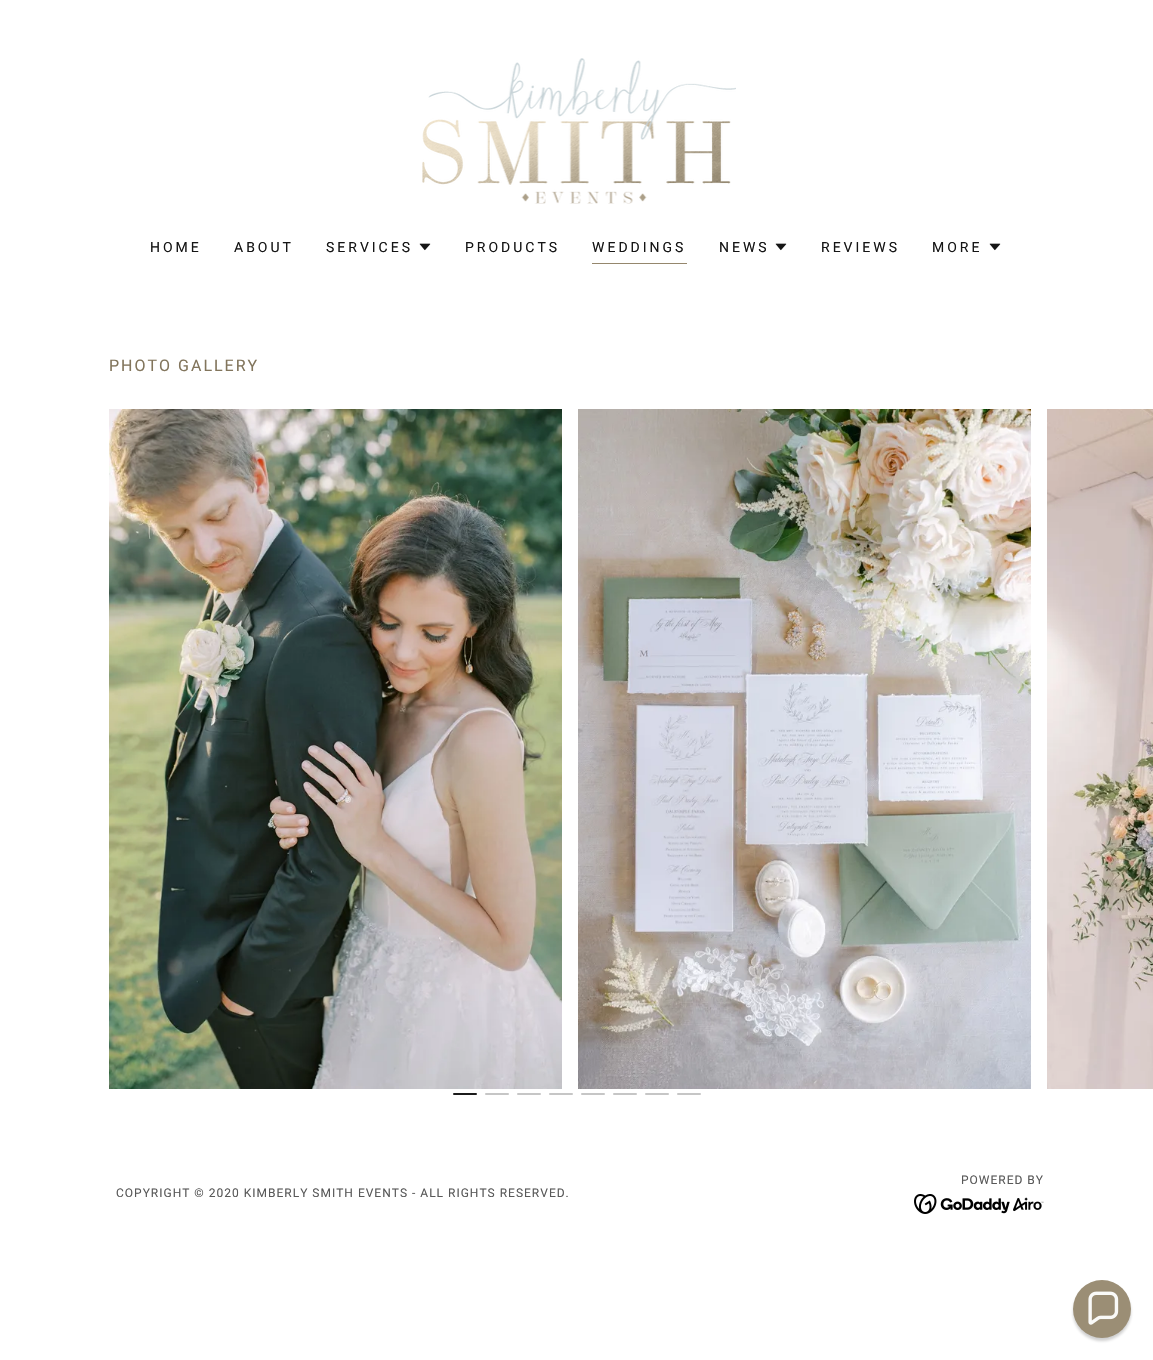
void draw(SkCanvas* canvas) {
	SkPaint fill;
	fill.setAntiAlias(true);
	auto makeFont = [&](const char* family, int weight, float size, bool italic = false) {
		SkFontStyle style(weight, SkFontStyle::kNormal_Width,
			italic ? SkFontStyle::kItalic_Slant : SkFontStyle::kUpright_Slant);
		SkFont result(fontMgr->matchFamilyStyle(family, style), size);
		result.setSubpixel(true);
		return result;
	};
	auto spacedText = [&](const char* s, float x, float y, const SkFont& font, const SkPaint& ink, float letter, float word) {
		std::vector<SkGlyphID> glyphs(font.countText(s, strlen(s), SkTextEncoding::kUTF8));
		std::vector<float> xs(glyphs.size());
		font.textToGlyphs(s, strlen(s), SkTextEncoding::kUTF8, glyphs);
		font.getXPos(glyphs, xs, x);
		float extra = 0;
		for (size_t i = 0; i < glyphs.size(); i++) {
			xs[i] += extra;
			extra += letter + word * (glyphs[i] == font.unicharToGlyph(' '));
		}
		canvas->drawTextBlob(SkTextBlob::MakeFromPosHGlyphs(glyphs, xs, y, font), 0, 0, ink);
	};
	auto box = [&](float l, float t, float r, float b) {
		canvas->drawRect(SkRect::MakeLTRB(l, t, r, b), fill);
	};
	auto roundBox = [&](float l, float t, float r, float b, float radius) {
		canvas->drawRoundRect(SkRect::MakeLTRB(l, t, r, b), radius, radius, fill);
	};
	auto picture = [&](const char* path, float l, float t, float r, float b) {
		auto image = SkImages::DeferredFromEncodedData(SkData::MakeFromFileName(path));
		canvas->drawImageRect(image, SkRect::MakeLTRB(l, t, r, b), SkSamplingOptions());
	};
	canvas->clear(0xFFFFFFFF);
	picture("image0.png", 422, 58, 736, 204);
	picture("image1.png", 419, 243, 431, 251);
	fill.setColor(0xFF95876D);
	box(592, 263, 687, 264);
	picture("image1.png", 775, 243, 787, 251);
	picture("image1.png", 989, 243, 1001, 251);
	picture("image2.png", 109, 409, 562, 1089);
	picture("image3.png", 578, 409, 1031, 1089);
	picture("image4.png", 1047, 409, 1153, 1089);
	fill.setColor(0xFF1B1B1B);
	roundBox(453, 1093, 477, 1095, 1);
	fill.setColor(0xFFC6C6C6);
	roundBox(485, 1093, 509, 1095, 1);
	roundBox(517, 1093, 541, 1095, 1);
	roundBox(549, 1093, 573, 1095, 1);
	roundBox(581, 1093, 605, 1095, 1);
	roundBox(613, 1093, 637, 1095, 1);
	roundBox(645, 1093, 669, 1095, 1);
	roundBox(677, 1093, 701, 1095, 1);
	picture("image5.png", 914, 1194, 1044, 1214);
	fill.setColor(0x330D0D0D);
	fill.setMaskFilter(SkMaskFilter::MakeBlur(kNormal_SkBlurStyle, 1.5f));
	canvas->drawRoundRect(SkRect::MakeLTRB(1073, 1283, 1131, 1341), 29, 29, fill);
	fill.setMaskFilter(nullptr);
	fill.setColor(0xFF9B8E75);
	canvas->drawCircle(1102, 1309, 29, fill);
	picture("image6.png", 1088, 1291, 1119, 1325);
	auto font1 = makeFont("Roboto", 400, 14);
	fill.setColor(0xFF151515);
	spacedText("HOME", 150, 252, font1, fill, 3, 0);
	spacedText("ABOUT", 234, 252, font1, fill, 3, 0);
	spacedText("SERVICES", 326, 252, font1, fill, 3, 0);
	spacedText("PRODUCTS", 465, 252, font1, fill, 3, 0);
	spacedText("WEDDINGS", 592, 252, font1, fill, 3, 0);
	spacedText("NEWS", 719, 252, font1, fill, 3, 0);
	spacedText("REVIEWS", 821, 252, font1, fill, 3, 0);
	spacedText("MORE", 932, 252, font1, fill, 3, 0);
	auto font2 = makeFont("Roboto", 400, 16);
	fill.setColor(0xFF82755C);
	spacedText("PHOTO GALLERY", 109, 371, font2, fill, 2, 0);
	auto font3 = makeFont("Roboto", 400, 12);
	fill.setColor(0xFF595959);
	spacedText("POWERED BY", 961, 1184, font3, fill, 1, 0);
	spacedText("COPYRIGHT © 2020 KIMBERLY SMITH EVENTS - ALL RIGHTS RESERVED.", 116, 1197, font3, fill, 1, 0);
}
